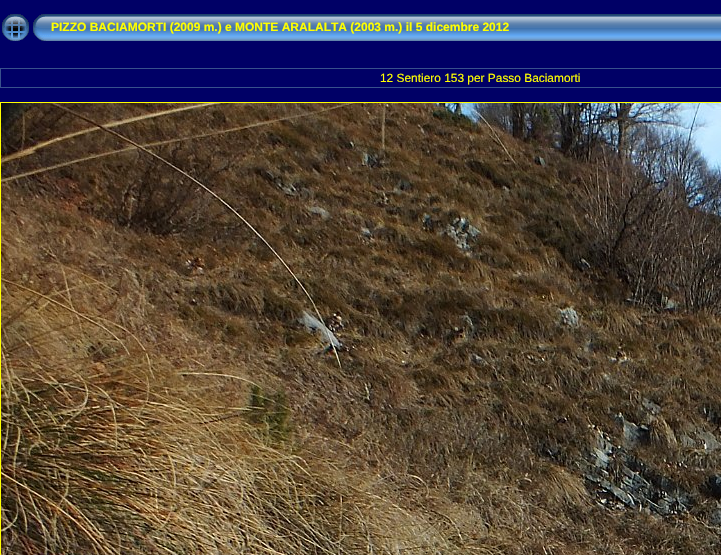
void draw(SkCanvas* canvas) {
	SkPaint fill;
	fill.setAntiAlias(true);
	auto makeFont = [&](const char* family, int weight, float size, bool italic = false) {
		SkFontStyle style(weight, SkFontStyle::kNormal_Width,
			italic ? SkFontStyle::kItalic_Slant : SkFontStyle::kUpright_Slant);
		SkFont result(fontMgr->matchFamilyStyle(family, style), size);
		result.setSubpixel(true);
		return result;
	};
	auto text = [&](const char* s, float x, float y, const SkFont& font) {
		canvas->drawString(s, x, y, font, fill);
	};
	auto box = [&](float l, float t, float r, float b) {
		canvas->drawRect(SkRect::MakeLTRB(l, t, r, b), fill);
	};
	auto picture = [&](const char* path, float l, float t, float r, float b) {
		auto image = SkImages::DeferredFromEncodedData(SkData::MakeFromFileName(path));
		canvas->drawImageRect(image, SkRect::MakeLTRB(l, t, r, b), SkSamplingOptions());
	};
	canvas->clear(0xFF000066);
	picture("image0.png", 2, 14, 29, 41);
	picture("image1.png", 33, 14, 51, 41);
	picture("image2.png", 51, 14, 721, 41);
	fill.setColor(0xFF38518C);
	box(0, 68, 721, 69);
	box(0, 87, 721, 88);
	box(0, 68, 1, 88);
	fill.setStyle(SkPaint::kStroke_Style);
	fill.setStrokeWidth(1);
	fill.setColor(0xFFFFFF00);
	canvas->drawRect(SkRect::MakeLTRB(0.5f, 102.5f, 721.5f, 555.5f), fill);
	picture("image3.png", 1, 103, 721, 555);
	auto font1 = makeFont("Liberation Sans", 700, 12);
	fill.setStyle(SkPaint::kFill_Style);
	text("PIZZO BACIAMORTI (2009 m.) e MONTE ARALALTA (2003 m.) il 5 dicembre 2012", 51, 31, font1);
	auto font2 = makeFont("Liberation Sans", 400, 11.9f);
	text("12 Sentiero 153 per Passo Baciamorti", 380, 82, font2);
}
